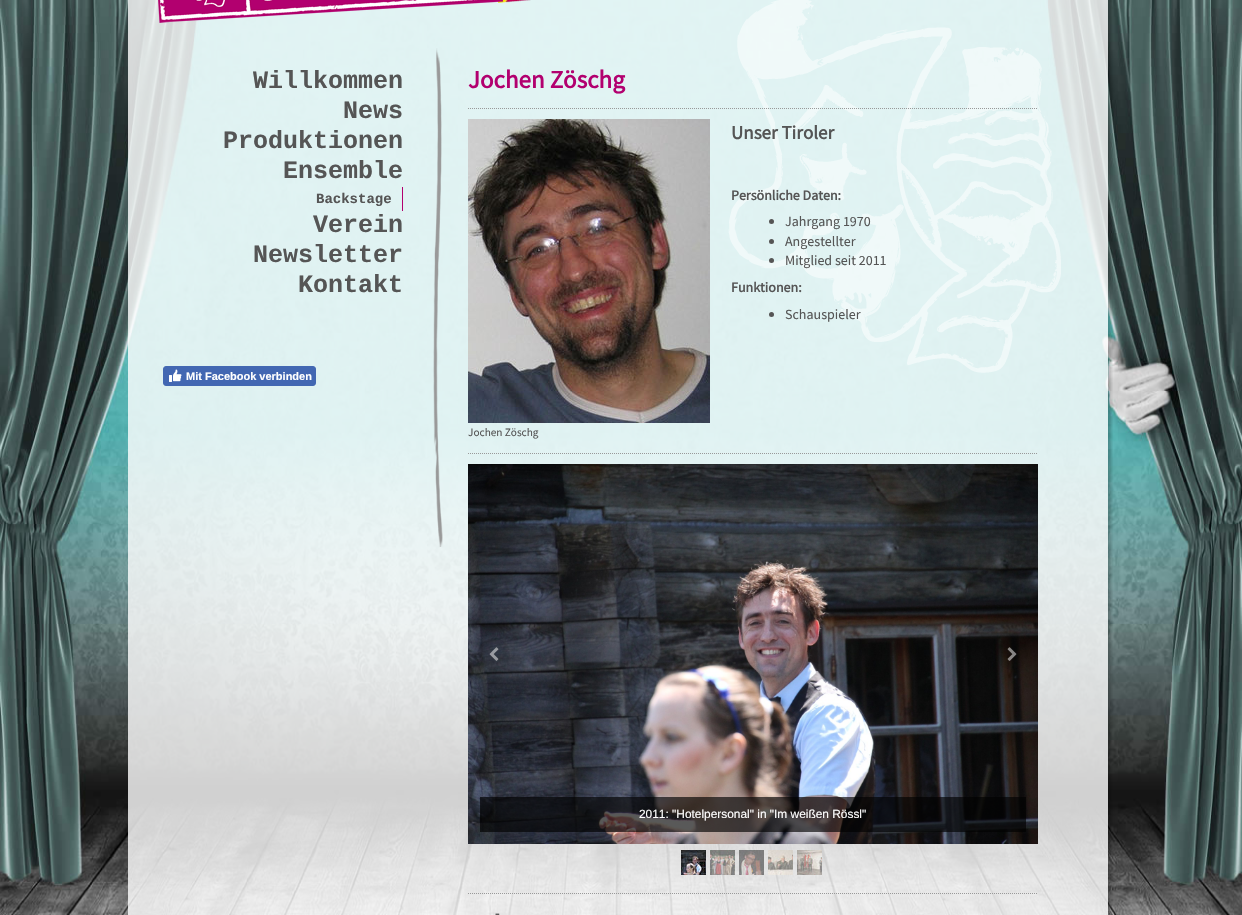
void draw(SkCanvas* canvas) {
	SkPaint fill;
	fill.setAntiAlias(true);
	auto makeFont = [&](const char* family, int weight, float size, bool italic = false) {
		SkFontStyle style(weight, SkFontStyle::kNormal_Width,
			italic ? SkFontStyle::kItalic_Slant : SkFontStyle::kUpright_Slant);
		SkFont result(fontMgr->matchFamilyStyle(family, style), size);
		result.setSubpixel(true);
		return result;
	};
	auto text = [&](const char* s, float x, float y, const SkFont& font) {
		canvas->drawString(s, x, y, font, fill);
	};
	auto box = [&](float l, float t, float r, float b) {
		canvas->drawRect(SkRect::MakeLTRB(l, t, r, b), fill);
	};
	auto picture = [&](const char* path, float l, float t, float r, float b) {
		auto image = SkImages::DeferredFromEncodedData(SkData::MakeFromFileName(path));
		canvas->drawImageRect(image, SkRect::MakeLTRB(l, t, r, b), SkSamplingOptions());
	};
	canvas->clear(0xFFFFFFFF);
	picture("image0.png", 0, 0, 1242, 915);
	picture("image3.png", 728, 0, 1061, 373);
	picture("image1.png", 128, 0, 1112, 7);
	picture("image4.png", 128, 7, 1113, 915);
	picture("image2.png", 158, 0, 503, 23);
	fill.setColor(0xFFB2006F);
	box(402, 187, 403, 211);
	fill.setColor(0xFF4267B2);
	canvas->drawRoundRect(SkRect::MakeLTRB(163.5f, 366.5f, 315.5f, 385.5f), 2.5f, 2.5f, fill);
	fill.setStyle(SkPaint::kStroke_Style);
	fill.setStrokeWidth(1);
	canvas->drawRoundRect(SkRect::MakeLTRB(163.5f, 366.5f, 315.5f, 385.5f), 2.5f, 2.5f, fill);
	picture("image5.png", 169, 369, 182, 382);
	picture("image6.png", 433, 48, 443, 547);
	fill.setColor(0xFF999999);
	fill.setPathEffect(SkDashPathEffect::Make({{1, 1}}, 0));
	canvas->drawPath(SkPathBuilder().moveTo(468, 108.5f).lineTo(1038, 108.5f).detach(), fill);
	fill.setPathEffect(nullptr);
	fill.setStyle(SkPaint::kFill_Style);
	fill.setColor(0xFF555555);
	canvas->drawCircle(771.5f, 221.5f, 2.5f, fill);
	canvas->drawCircle(771.5f, 241.5f, 2.5f, fill);
	canvas->drawCircle(771.5f, 260.5f, 2.5f, fill);
	canvas->drawCircle(771.5f, 314.5f, 2.5f, fill);
	picture("image7.png", 468, 119, 710, 423);
	fill.setStyle(SkPaint::kStroke_Style);
	fill.setColor(0xFF999999);
	fill.setPathEffect(SkDashPathEffect::Make({{1, 1}}, 0));
	canvas->drawPath(SkPathBuilder().moveTo(468, 453.5f).lineTo(1038, 453.5f).detach(), fill);
	fill.setPathEffect(nullptr);
	picture("image10.png", 468, 464, 1038, 844);
	fill.setStyle(SkPaint::kFill_Style);
	fill.setColor(0x12000000);
	canvas->drawCircle(494, 654, 16, fill);
	picture("image8.png", 489, 647, 499, 661);
	canvas->drawCircle(1012, 654, 16, fill);
	picture("image9.png", 1007, 647, 1017, 661);
	fill.setColor(0xA6000000);
	box(480, 797, 1026, 832);
	picture("image11.png", 681, 850, 706, 875);
	picture("image12.png", 710, 850, 735, 875);
	picture("image13.png", 739, 850, 764, 875);
	picture("image14.png", 768, 850, 793, 875);
	picture("image15.png", 797, 850, 822, 875);
	fill.setStyle(SkPaint::kStroke_Style);
	fill.setColor(0xFF999999);
	fill.setPathEffect(SkDashPathEffect::Make({{1, 1}}, 0));
	canvas->drawPath(SkPathBuilder().moveTo(468, 893.5f).lineTo(1038, 893.5f).detach(), fill);
	fill.setPathEffect(nullptr);
	auto font1 = makeFont("Liberation Mono", 700, 25);
	fill.setStyle(SkPaint::kFill_Style);
	fill.setColor(0xFF555555);
	text("Willkommen", 253, 88, font1);
	text("News", 343, 118, font1);
	text("Produktionen", 223, 148, font1);
	text("Ensemble", 283, 178, font1);
	auto font2 = makeFont("Liberation Mono", 700, 14);
	text("Backstage", 316, 203, font2);
	text("Verein", 313, 232, font1);
	text("Newsletter", 253, 262, font1);
	text("Kontakt", 298, 292, font1);
	auto font3 = makeFont("Liberation Sans", 700, 11);
	fill.setColor(0xFFFFFFFF);
	text("Mit Facebook verbinden", 186, 380, font3);
	auto font4 = makeFont("Source Sans Pro", 700, 25);
	fill.setColor(0xFFB2006F);
	text("Jochen Zöschg", 468, 88, font4);
	auto font5 = makeFont("Source Sans Pro", 700, 19);
	fill.setColor(0xFF555555);
	text("Unser Tiroler", 731, 139, font5);
	auto font6 = makeFont("Source Sans Pro", 700, 14);
	text("Persönliche Daten:", 731, 200, font6);
	auto font7 = makeFont("Source Sans Pro", 400, 14);
	text("Jahrgang 1970", 785, 226, font7);
	text("Angestellter", 785, 246, font7);
	text("Mitglied seit 2011", 785, 265, font7);
	text("Funktionen:", 731, 292, font6);
	text("Schauspieler", 785, 319, font7);
	auto font8 = makeFont("Source Sans Pro", 400, 11.25f);
	text("Jochen Zöschg", 468, 436, font8);
	auto font9 = makeFont("Liberation Sans", 400, 11.9f);
	fill.setColor(0xFFFFFFFF);
	text("2011: \"Hotelpersonal\" in \"Im weißen Rössl\"", 639, 818, font9);
	fill.setColor(0xFF555555);
	text("-", 495, 918, font6);
}
